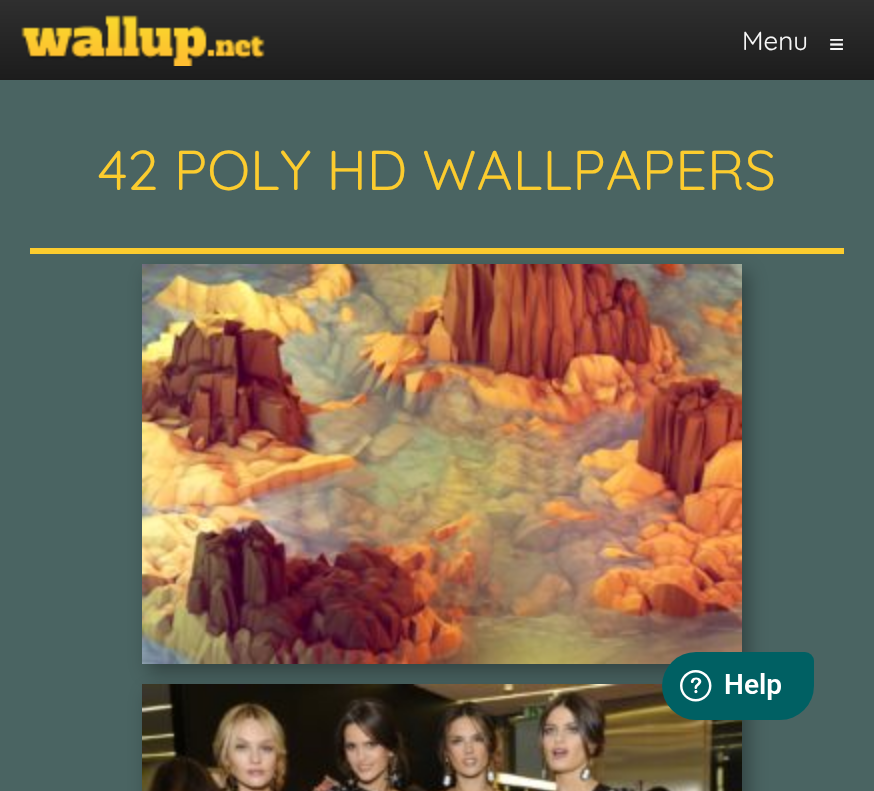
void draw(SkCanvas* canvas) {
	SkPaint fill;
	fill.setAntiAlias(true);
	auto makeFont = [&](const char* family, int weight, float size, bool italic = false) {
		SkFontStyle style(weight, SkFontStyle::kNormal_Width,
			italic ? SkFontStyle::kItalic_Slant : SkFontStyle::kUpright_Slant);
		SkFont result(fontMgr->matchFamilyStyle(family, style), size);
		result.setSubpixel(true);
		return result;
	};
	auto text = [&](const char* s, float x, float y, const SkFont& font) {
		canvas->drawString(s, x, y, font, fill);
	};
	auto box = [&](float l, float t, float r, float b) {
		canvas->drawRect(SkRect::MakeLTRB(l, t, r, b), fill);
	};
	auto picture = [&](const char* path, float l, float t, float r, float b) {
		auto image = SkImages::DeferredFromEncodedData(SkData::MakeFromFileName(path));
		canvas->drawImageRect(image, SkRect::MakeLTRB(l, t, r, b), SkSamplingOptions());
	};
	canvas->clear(0xFFFFFFFF);
	{
		const SkColor colors[] = {0xFF4A6462, 0xFF805429};
		const float stops[] = {0.1f, 0.8f};
		const SkPoint ends[] = {{-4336, 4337}, {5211, 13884}};
		fill.setShader(SkGradientShader::MakeLinear(ends, colors, stops, 2, SkTileMode::kClamp));
		fill.setAlpha(255);
	}
	box(0, 80, 874, 791);
	{
		const SkColor colors[] = {0xFF2F2F2F, 0xFF1C1C1C};
		const float stops[] = {0, 1};
		const SkPoint ends[] = {{437, 0}, {437, 80}};
		fill.setShader(SkGradientShader::MakeLinear(ends, colors, stops, 2, SkTileMode::kClamp));
		fill.setAlpha(255);
	}
	box(0, 0, 874, 80);
	picture("image0.png", 21, 15, 265, 66);
	fill.setShader(nullptr);
	fill.setColor(0xFFFCCC2E);
	box(30, 248, 844, 254);
	fill.setColor(0x57000000);
	fill.setMaskFilter(SkMaskFilter::MakeBlur(kNormal_SkBlurStyle, 9));
	canvas->drawRect(SkRect::MakeLTRB(148, 272, 748, 672), fill);
	fill.setMaskFilter(nullptr);
	picture("image1.png", 142, 264, 742, 664);
	fill.setMaskFilter(SkMaskFilter::MakeBlur(kNormal_SkBlurStyle, 9));
	canvas->drawRect(SkRect::MakeLTRB(148, 692, 748, 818), fill);
	fill.setMaskFilter(nullptr);
	picture("image2.png", 142, 684, 742, 791);
	picture("image3.png", 662, 652, 814, 720);
	auto font1 = makeFont("Quicksand", 300, 26);
	fill.setColor(0xFFF8F8F8);
	text("Menu", 742, 50, font1);
	auto font2 = makeFont("Liberation Sans", 400, 26);
	text("≡", 829, 53, font2);
	auto font3 = makeFont("Quicksand", 300, 56);
	fill.setColor(0xFFFCCC2E);
	text("42 POLY HD WALLPAPERS", 98, 190, font3);
}
